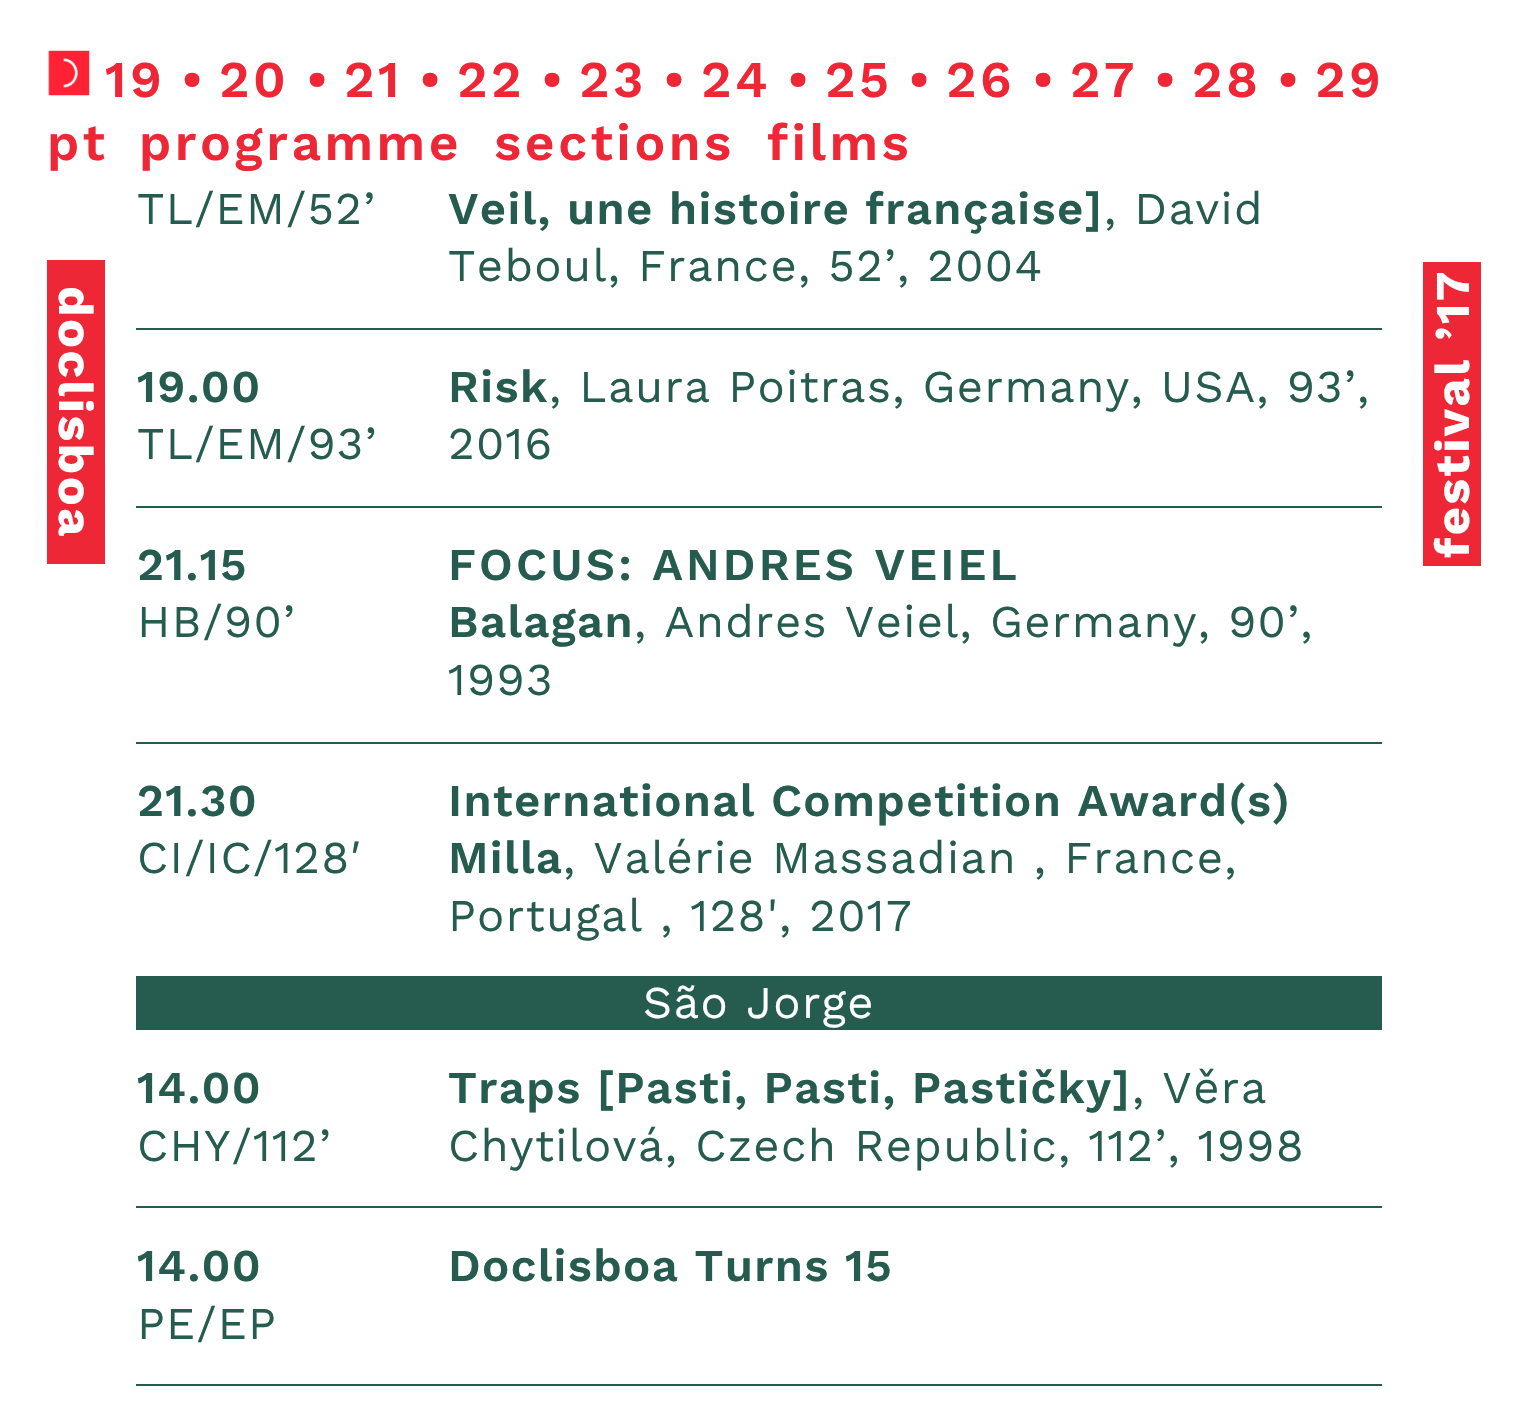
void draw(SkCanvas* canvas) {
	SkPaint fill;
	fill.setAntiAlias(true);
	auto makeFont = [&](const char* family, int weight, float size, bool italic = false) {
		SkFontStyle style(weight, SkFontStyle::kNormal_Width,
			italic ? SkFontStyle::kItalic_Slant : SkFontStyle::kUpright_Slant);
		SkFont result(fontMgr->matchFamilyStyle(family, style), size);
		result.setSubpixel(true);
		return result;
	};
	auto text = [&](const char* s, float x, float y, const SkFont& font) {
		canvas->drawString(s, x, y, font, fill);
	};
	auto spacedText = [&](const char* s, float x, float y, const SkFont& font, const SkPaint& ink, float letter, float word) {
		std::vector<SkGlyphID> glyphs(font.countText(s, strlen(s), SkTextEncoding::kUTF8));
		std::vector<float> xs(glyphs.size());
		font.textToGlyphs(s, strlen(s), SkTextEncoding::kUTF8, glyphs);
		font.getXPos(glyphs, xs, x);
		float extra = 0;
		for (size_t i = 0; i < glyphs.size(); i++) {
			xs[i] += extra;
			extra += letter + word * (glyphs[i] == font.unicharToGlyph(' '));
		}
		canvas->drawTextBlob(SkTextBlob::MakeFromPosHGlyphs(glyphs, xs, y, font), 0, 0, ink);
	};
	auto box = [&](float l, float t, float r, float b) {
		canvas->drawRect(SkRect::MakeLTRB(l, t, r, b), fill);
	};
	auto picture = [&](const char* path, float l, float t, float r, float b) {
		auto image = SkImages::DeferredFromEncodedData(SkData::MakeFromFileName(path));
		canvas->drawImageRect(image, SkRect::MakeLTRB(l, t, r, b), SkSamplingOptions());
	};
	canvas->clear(0xFFFFFFFF);
	picture("image0.png", 48, 50, 90, 96);
	fill.setColor(0xFFEE2737);
	box(47, 260, 105, 564);
	fill.setColor(0xFF265C50);
	box(136, 328, 1382, 330);
	box(136, 506, 1382, 508);
	box(136, 742, 1382, 744);
	box(136, 976, 1382, 1030);
	box(136, 1206, 1382, 1208);
	box(136, 1384, 1382, 1386);
	fill.setColor(0xFFEE2737);
	box(1423, 262, 1481, 566);
	auto font1 = makeFont("Work Sans", 600, 51.5f);
	spacedText("19", 105, 97, font1, fill, 3.5f, 0);
	text("•", 181, 97, font1);
	spacedText("20", 219, 97, font1, fill, 3.5f, 0);
	text("•", 306, 97, font1);
	spacedText("21", 344, 97, font1, fill, 3.5f, 0);
	text("•", 419, 97, font1);
	spacedText("22", 457, 97, font1, fill, 3.5f, 0);
	text("•", 541, 97, font1);
	spacedText("23", 579, 97, font1, fill, 3.5f, 0);
	text("•", 663, 97, font1);
	spacedText("24", 701, 97, font1, fill, 3.5f, 0);
	text("•", 787, 97, font1);
	spacedText("25", 825, 97, font1, fill, 3.5f, 0);
	text("•", 908, 97, font1);
	spacedText("26", 946, 97, font1, fill, 3.5f, 0);
	text("•", 1032, 97, font1);
	spacedText("27", 1070, 97, font1, fill, 3.5f, 0);
	text("•", 1154, 97, font1);
	spacedText("28", 1192, 97, font1, fill, 3.5f, 0);
	text("•", 1277, 97, font1);
	spacedText("29", 1315, 97, font1, fill, 3.5f, 0);
	spacedText("pt", 47, 160, font1, fill, 3.5f, 0);
	spacedText("programme", 139, 160, font1, fill, 3.5f, 0);
	spacedText("sections", 494, 160, font1, fill, 3.5f, 0);
	spacedText("films", 767, 160, font1, fill, 3.5f, 0);
	auto font2 = makeFont("Work Sans", 700, 48.5f);
	fill.setColor(0xFFFFFFFF);
	canvas->save();
	canvas->rotate(90, 59, 286);
	spacedText("doclisboa", 59, 286, font2, fill, 2.5f, 0);
	canvas->restore();
	auto font3 = makeFont("Work Sans", 400, 45.5f);
	fill.setColor(0xFF265C50);
	spacedText("TL/EM/52’", 137, 224, font3, fill, 1.35f, 0);
	auto font4 = makeFont("Work Sans", 600, 45.5f);
	spacedText("Veil, une histoire française]", 448, 224, font4, fill, 1.35f, 0);
	spacedText(", David", 1104, 224, font3, fill, 1.35f, 0);
	spacedText("Teboul, France, 52’, 2004", 448, 281, font3, fill, 1.35f, 0);
	spacedText("19.00", 137, 402, font4, fill, 1.35f, 0);
	spacedText("TL/EM/93’", 137, 459, font3, fill, 1.35f, 0);
	spacedText("Risk", 448, 402, font4, fill, 1.35f, 0);
	spacedText(", Laura Poitras, Germany, USA, 93’,", 549, 402, font3, fill, 1.35f, 0);
	spacedText("2016", 448, 459, font3, fill, 1.35f, 0);
	spacedText("21.15", 137, 580, font4, fill, 1.35f, 0);
	spacedText("HB/90’", 137, 637, font3, fill, 1.35f, 0);
	spacedText("FOCUS: ANDRES VEIEL", 448, 580, font4, fill, 3.2f, 0);
	spacedText("Balagan", 448, 637, font4, fill, 1.35f, 0);
	spacedText(", Andres Veiel, Germany, 90’,", 634, 637, font3, fill, 1.35f, 0);
	spacedText("1993", 448, 695, font3, fill, 1.35f, 0);
	spacedText("21.30", 137, 816, font4, fill, 1.35f, 0);
	spacedText("CI/IC/128′", 137, 873, font3, fill, 1.35f, 0);
	spacedText("International Competition Award(s)", 448, 816, font4, fill, 1.35f, 0);
	spacedText("Milla", 448, 873, font4, fill, 1.35f, 0);
	spacedText(", Valérie Massadian , France,", 563, 873, font3, fill, 1.35f, 0);
	spacedText("Portugal , 128', 2017", 448, 931, font3, fill, 1.35f, 0);
	fill.setColor(0xFFFFFFFF);
	spacedText("São Jorge", 643, 1018, font3, fill, 1.35f, 0);
	fill.setColor(0xFF265C50);
	spacedText("14.00", 137, 1103, font4, fill, 1.35f, 0);
	spacedText("CHY/112’", 137, 1161, font3, fill, 1.35f, 0);
	spacedText("Traps [Pasti, Pasti, Pastičky]", 448, 1103, font4, fill, 1.35f, 0);
	spacedText(", Věra", 1132, 1103, font3, fill, 1.35f, 0);
	spacedText("Chytilová, Czech Republic, 112’, 1998", 448, 1161, font3, fill, 1.35f, 0);
	spacedText("14.00", 137, 1281, font4, fill, 1.35f, 0);
	spacedText("PE/EP", 137, 1339, font3, fill, 1.35f, 0);
	spacedText("Doclisboa Turns 15", 448, 1281, font4, fill, 1.35f, 0);
	fill.setColor(0xFFFFFFFF);
	canvas->save();
	canvas->rotate(-90, 1469, 558);
	spacedText("festival ’17", 1469, 558, font2, fill, 2.5f, 0);
	canvas->restore();
}
